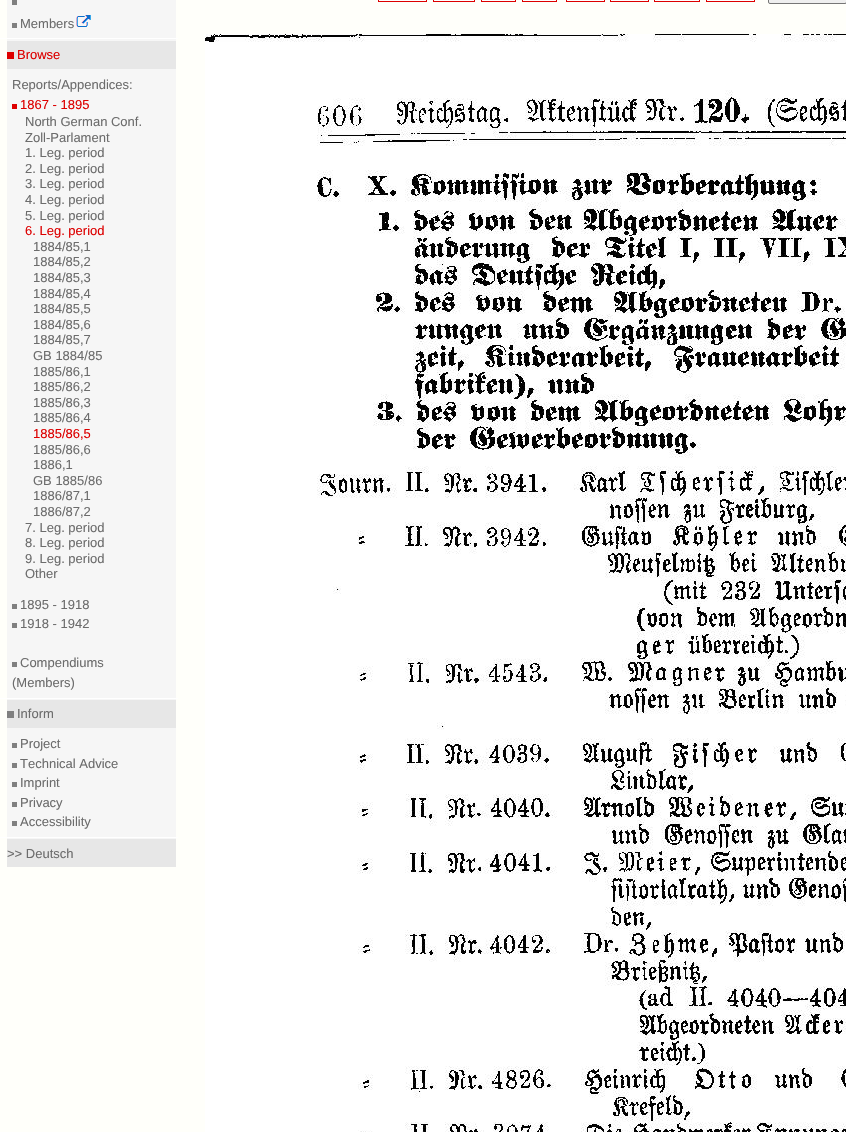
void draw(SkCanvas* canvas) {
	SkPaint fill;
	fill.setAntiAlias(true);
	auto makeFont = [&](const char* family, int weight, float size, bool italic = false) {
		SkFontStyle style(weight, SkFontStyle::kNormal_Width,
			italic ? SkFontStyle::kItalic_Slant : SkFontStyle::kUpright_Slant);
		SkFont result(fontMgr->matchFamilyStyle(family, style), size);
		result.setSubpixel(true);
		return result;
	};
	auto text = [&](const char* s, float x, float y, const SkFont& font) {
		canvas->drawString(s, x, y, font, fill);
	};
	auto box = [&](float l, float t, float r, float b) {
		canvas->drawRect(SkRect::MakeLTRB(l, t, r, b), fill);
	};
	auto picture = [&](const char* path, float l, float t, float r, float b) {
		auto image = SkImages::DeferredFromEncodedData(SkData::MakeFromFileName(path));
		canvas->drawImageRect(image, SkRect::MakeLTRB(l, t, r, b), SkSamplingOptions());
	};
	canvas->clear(0xFFFFFFFA);
	fill.setColor(0xFFF6F6F6);
	box(7, 0, 176, 839);
	fill.setColor(0xFF808080);
	box(12, 0, 17, 5);
	box(12, 23, 17, 28);
	picture("image0.png", 76, 15, 91, 27);
	fill.setColor(0xFFFFFFFF);
	box(0, 38, 178, 39);
	fill.setColor(0xFFE7E7E7);
	box(7, 41, 176, 69);
	fill.setColor(0xFFDE0000);
	box(7, 52, 14, 59);
	box(12, 104, 17, 109);
	fill.setColor(0xFF808080);
	box(12, 604, 17, 609);
	box(12, 623, 17, 628);
	box(12, 662, 17, 667);
	fill.setColor(0xFFFFFFFF);
	box(0, 698, 178, 699);
	fill.setColor(0xFFE7E7E7);
	box(7, 700, 176, 728);
	fill.setColor(0xFF808080);
	box(7, 711, 14, 718);
	box(12, 743, 17, 748);
	box(12, 763, 17, 768);
	box(12, 782, 17, 787);
	box(12, 802, 17, 807);
	box(12, 821, 17, 826);
	fill.setColor(0xFFFFFFFF);
	box(0, 837, 178, 838);
	fill.setColor(0xFFE7E7E7);
	box(7, 839, 176, 867);
	fill.setColor(0xFFFFFFFF);
	canvas->drawRect(SkRect::MakeLTRB(378.5f, -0.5f, 426.5f, 1.5f), fill);
	fill.setStyle(SkPaint::kStroke_Style);
	fill.setStrokeWidth(1);
	fill.setColor(0xFFDD0000);
	canvas->drawRect(SkRect::MakeLTRB(378.5f, -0.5f, 426.5f, 1.5f), fill);
	fill.setStyle(SkPaint::kFill_Style);
	fill.setColor(0xFFFFFFFF);
	canvas->drawRect(SkRect::MakeLTRB(433.5f, -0.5f, 474.5f, 1.5f), fill);
	fill.setStyle(SkPaint::kStroke_Style);
	fill.setColor(0xFFDD0000);
	canvas->drawRect(SkRect::MakeLTRB(433.5f, -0.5f, 474.5f, 1.5f), fill);
	fill.setStyle(SkPaint::kFill_Style);
	fill.setColor(0xFFFFFFFF);
	canvas->drawRect(SkRect::MakeLTRB(481.5f, -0.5f, 515.5f, 1.5f), fill);
	fill.setStyle(SkPaint::kStroke_Style);
	fill.setColor(0xFFDD0000);
	canvas->drawRect(SkRect::MakeLTRB(481.5f, -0.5f, 515.5f, 1.5f), fill);
	fill.setStyle(SkPaint::kFill_Style);
	fill.setColor(0xFFFFFFFF);
	canvas->drawRect(SkRect::MakeLTRB(522.5f, -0.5f, 556.5f, 1.5f), fill);
	fill.setStyle(SkPaint::kStroke_Style);
	fill.setColor(0xFFDD0000);
	canvas->drawRect(SkRect::MakeLTRB(522.5f, -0.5f, 556.5f, 1.5f), fill);
	fill.setStyle(SkPaint::kFill_Style);
	fill.setColor(0xFFFFFFFF);
	canvas->drawRect(SkRect::MakeLTRB(566.5f, -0.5f, 604.5f, 1.5f), fill);
	fill.setStyle(SkPaint::kStroke_Style);
	fill.setColor(0xFFDD0000);
	canvas->drawRect(SkRect::MakeLTRB(566.5f, -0.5f, 604.5f, 1.5f), fill);
	fill.setStyle(SkPaint::kFill_Style);
	fill.setColor(0xFFFFFFFF);
	canvas->drawRect(SkRect::MakeLTRB(610.5f, -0.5f, 648.5f, 1.5f), fill);
	fill.setStyle(SkPaint::kStroke_Style);
	fill.setColor(0xFFDD0000);
	canvas->drawRect(SkRect::MakeLTRB(610.5f, -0.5f, 648.5f, 1.5f), fill);
	fill.setStyle(SkPaint::kFill_Style);
	fill.setColor(0xFFFFFFFF);
	canvas->drawRect(SkRect::MakeLTRB(654.5f, -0.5f, 699.5f, 1.5f), fill);
	fill.setStyle(SkPaint::kStroke_Style);
	fill.setColor(0xFFDD0000);
	canvas->drawRect(SkRect::MakeLTRB(654.5f, -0.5f, 699.5f, 1.5f), fill);
	fill.setStyle(SkPaint::kFill_Style);
	fill.setColor(0xFFFFFFFF);
	canvas->drawRect(SkRect::MakeLTRB(706.5f, -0.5f, 754.5f, 1.5f), fill);
	fill.setStyle(SkPaint::kStroke_Style);
	fill.setColor(0xFFDD0000);
	canvas->drawRect(SkRect::MakeLTRB(706.5f, -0.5f, 754.5f, 1.5f), fill);
	fill.setStyle(SkPaint::kFill_Style);
	fill.setColor(0xFFEFEFEF);
	canvas->drawRoundRect(SkRect::MakeLTRB(768.5f, -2.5f, 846.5f, 3.5f), 1.5f, 1.5f, fill);
	fill.setStyle(SkPaint::kStroke_Style);
	fill.setColor(0xFF767676);
	canvas->drawRoundRect(SkRect::MakeLTRB(768.5f, -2.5f, 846.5f, 3.5f), 1.5f, 1.5f, fill);
	picture("image1.png", 205, 34, 846, 1132);
	auto font1 = makeFont("Liberation Sans", 400, 13);
	fill.setStyle(SkPaint::kFill_Style);
	fill.setColor(0xFF6C6C6C);
	text("Members", 20, 28, font1);
	fill.setColor(0xFFDD0000);
	text("Browse", 17, 59, font1);
	fill.setColor(0xFF6C6C6C);
	text("Reports/Appendices:", 12, 89, font1);
	fill.setColor(0xFFDD0000);
	text("1867 - 1895", 20, 109, font1);
	fill.setColor(0xFF6C6C6C);
	text("North German Conf.", 25, 126, font1);
	text("Zoll-Parlament", 25, 142, font1);
	text("1. Leg. period", 25, 157, font1);
	text("2. Leg. period", 25, 173, font1);
	text("3. Leg. period", 25, 188, font1);
	text("4. Leg. period", 25, 204, font1);
	text("5. Leg. period", 25, 220, font1);
	fill.setColor(0xFFDD0000);
	text("6. Leg. period", 25, 235, font1);
	fill.setColor(0xFF6C6C6C);
	text("1884/85,1", 33, 251, font1);
	text("1884/85,2", 33, 266, font1);
	text("1884/85,3", 33, 282, font1);
	text("1884/85,4", 33, 298, font1);
	text("1884/85,5", 33, 313, font1);
	text("1884/85,6", 33, 329, font1);
	text("1884/85,7", 33, 344, font1);
	text("GB 1884/85", 33, 360, font1);
	text("1885/86,1", 33, 376, font1);
	text("1885/86,2", 33, 391, font1);
	text("1885/86,3", 33, 407, font1);
	text("1885/86,4", 33, 422, font1);
	fill.setColor(0xFFDD0000);
	text("1885/86,5", 33, 438, font1);
	fill.setColor(0xFF6C6C6C);
	text("1885/86,6", 33, 454, font1);
	text("1886,1", 33, 469, font1);
	text("GB 1885/86", 33, 485, font1);
	text("1886/87,1", 33, 500, font1);
	text("1886/87,2", 33, 516, font1);
	text("7. Leg. period", 25, 532, font1);
	text("8. Leg. period", 25, 547, font1);
	text("9. Leg. period", 25, 563, font1);
	text("Other", 25, 578, font1);
	text("1895 - 1918", 20, 609, font1);
	text("1918 - 1942", 20, 628, font1);
	text("Compendiums", 20, 667, font1);
	text("(Members)", 12, 687, font1);
	text("Inform", 17, 718, font1);
	text("Project", 20, 748, font1);
	text("Technical Advice", 20, 768, font1);
	text("Imprint", 20, 787, font1);
	text("Privacy", 20, 807, font1);
	text("Accessibility", 20, 826, font1);
	text(">> Deutsch", 7, 858, font1);
}
